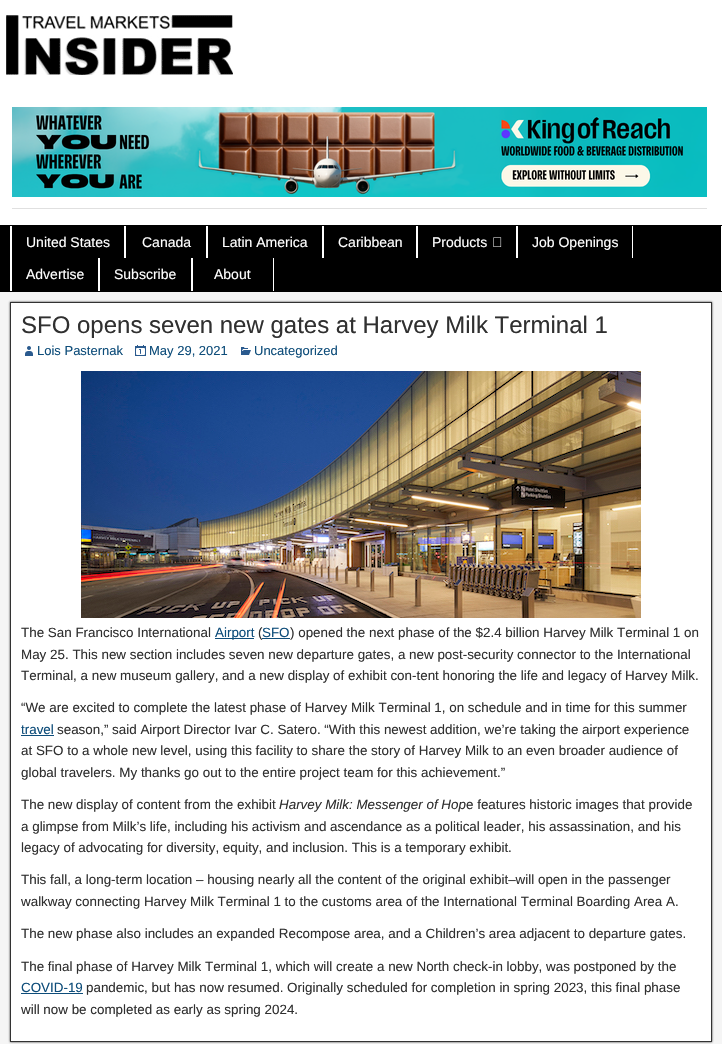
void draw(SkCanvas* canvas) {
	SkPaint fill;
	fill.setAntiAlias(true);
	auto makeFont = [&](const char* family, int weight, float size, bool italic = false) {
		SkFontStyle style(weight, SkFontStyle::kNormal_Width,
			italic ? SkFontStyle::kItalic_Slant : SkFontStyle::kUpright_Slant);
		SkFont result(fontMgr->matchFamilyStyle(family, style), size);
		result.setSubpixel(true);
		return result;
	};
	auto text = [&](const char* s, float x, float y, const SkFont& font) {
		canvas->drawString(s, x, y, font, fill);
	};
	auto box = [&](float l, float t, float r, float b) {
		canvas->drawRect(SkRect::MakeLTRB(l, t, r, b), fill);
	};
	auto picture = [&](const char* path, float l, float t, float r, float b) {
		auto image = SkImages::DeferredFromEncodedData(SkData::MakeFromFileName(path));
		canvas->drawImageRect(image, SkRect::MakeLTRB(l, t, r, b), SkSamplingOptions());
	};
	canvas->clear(0xFFFFFFFF);
	fill.setColor(0xFF000000);
	box(0, 225, 722, 292);
	picture("image0.png", 6, 15, 233, 75);
	fill.setColor(0xFFE0E0E0);
	box(12, 208, 707, 209);
	picture("image1.png", 12, 107, 707, 197);
	fill.setColor(0xFFFFFFFF);
	box(721, 226, 722, 291);
	box(10, 226, 11, 291);
	box(124, 226, 126, 258);
	box(11, 226, 12, 291);
	box(206, 226, 208, 258);
	box(322, 226, 324, 258);
	box(416, 226, 418, 258);
	box(516, 226, 518, 258);
	picture("image2.png", 493, 237, 502, 247);
	box(632, 226, 633, 258);
	box(98, 258, 100, 291);
	box(191, 258, 193, 291);
	box(273, 258, 274, 291);
	fill.setColor(0xFFF5F5F5);
	box(0, 292, 722, 1044);
	fill.setColor(0xFF333333);
	fill.setMaskFilter(SkMaskFilter::MakeBlur(kNormal_SkBlurStyle, 1));
	canvas->drawRect(SkRect::MakeLTRB(10, 302, 712, 1042), fill);
	fill.setMaskFilter(nullptr);
	fill.setColor(0xFFFFFFFF);
	canvas->drawRect(SkRect::MakeLTRB(10.5f, 302.5f, 711.5f, 1041.5f), fill);
	fill.setStyle(SkPaint::kStroke_Style);
	fill.setStrokeWidth(1);
	fill.setColor(0xFF333333);
	canvas->drawRect(SkRect::MakeLTRB(10.5f, 302.5f, 711.5f, 1041.5f), fill);
	picture("image3.png", 25, 346, 33, 356);
	picture("image4.png", 135, 345, 146, 356);
	picture("image5.png", 241, 347, 251, 355);
	picture("image6.png", 81, 371, 641, 618);
	fill.setStyle(SkPaint::kFill_Style);
	fill.setColor(0xFF0E4D7A);
	box(215, 638, 254, 639);
	box(21, 735, 54, 736);
	box(21, 993, 83, 994);
	auto font1 = makeFont("Liberation Sans", 400, 14);
	fill.setColor(0xFFFFFFFF);
	text("United States", 26, 247, font1);
	text("Canada", 142, 247, font1);
	text("Latin America", 222, 247, font1);
	text("Caribbean", 338, 247, font1);
	text("Products", 432, 247, font1);
	text("Job Openings", 532, 247, font1);
	text("Advertise", 26, 279, font1);
	text("Subscribe", 114, 279, font1);
	text("About", 214, 279, font1);
	auto font2 = makeFont("Liberation Sans", 400, 24);
	fill.setColor(0xFF303030);
	text("SFO opens seven new gates at Harvey Milk Terminal 1", 21, 333, font2);
	auto font3 = makeFont("Liberation Sans", 400, 13);
	fill.setColor(0xFF0E4D7A);
	text("Lois Pasternak", 37, 355, font3);
	text("May 29, 2021", 149, 355, font3);
	text("Uncategorized", 254, 355, font3);
	auto font4 = makeFont("Liberation Sans", 400, 13.4f);
	fill.setColor(0xFF303030);
	text("The San Francisco International", 21, 637, font4);
	fill.setColor(0xFF0E4D7A);
	text("Airport", 215, 637, font4);
	fill.setColor(0xFF303030);
	text("(", 258, 637, font4);
	fill.setColor(0xFF0E4D7A);
	text("SFO", 262, 637, font4);
	box(262, 638, 290, 639);
	fill.setColor(0xFF303030);
	text(") opened the next phase of the $2.4 billion Harvey Milk Terminal 1 on", 290, 637, font4);
	text("May 25. This new section includes seven new departure gates, a new post-security connector to the International", 21, 659, font4);
	text("Terminal, a new museum gallery, and a new display of exhibit con-tent honoring the life and legacy of Harvey Milk.", 21, 680, font4);
	text("“We are excited to complete the latest phase of Harvey Milk Terminal 1, on schedule and in time for this summer", 21, 712, font4);
	fill.setColor(0xFF0E4D7A);
	text("travel", 21, 734, font4);
	fill.setColor(0xFF303030);
	text("season,” said Airport Director Ivar C. Satero. “With this newest addition, we’re taking the airport experience", 57, 734, font4);
	text("at SFO to a whole new level, using this facility to share the story of Harvey Milk to an even broader audience of", 21, 755, font4);
	text("global travelers. My thanks go out to the entire project team for this achievement.”", 21, 777, font4);
	text("The new display of content from the exhibit", 21, 809, font4);
	auto font5 = makeFont("Liberation Sans", 400, 13.4f, true);
	text("Harvey Milk: Messenger of Hop", 279, 809, font5);
	text("e features historic images that provide", 466, 809, font4);
	text("a glimpse from Milk’s life, including his activism and ascendance as a political leader, his assassination, and his", 21, 831, font4);
	text("legacy of advocating for diversity, equity, and inclusion. This is a temporary exhibit.", 21, 852, font4);
	text("This fall, a long-term location – housing nearly all the content of the original exhibit–will open in the passenger", 21, 884, font4);
	text("walkway connecting Harvey Milk Terminal 1 to the customs area of the International Terminal Boarding Area A.", 21, 906, font4);
	text("The new phase also includes an expanded Recompose area, and a Children’s area adjacent to departure gates.", 21, 938, font4);
	text("The final phase of Harvey Milk Terminal 1, which will create a new North check-in lobby, was postponed by the", 21, 971, font4);
	fill.setColor(0xFF0E4D7A);
	text("COVID-19", 21, 992, font4);
	fill.setColor(0xFF303030);
	text("pandemic, but has now resumed. Originally scheduled for completion in spring 2023, this final phase", 86, 992, font4);
	text("will now be completed as early as spring 2024.", 21, 1014, font4);
}
